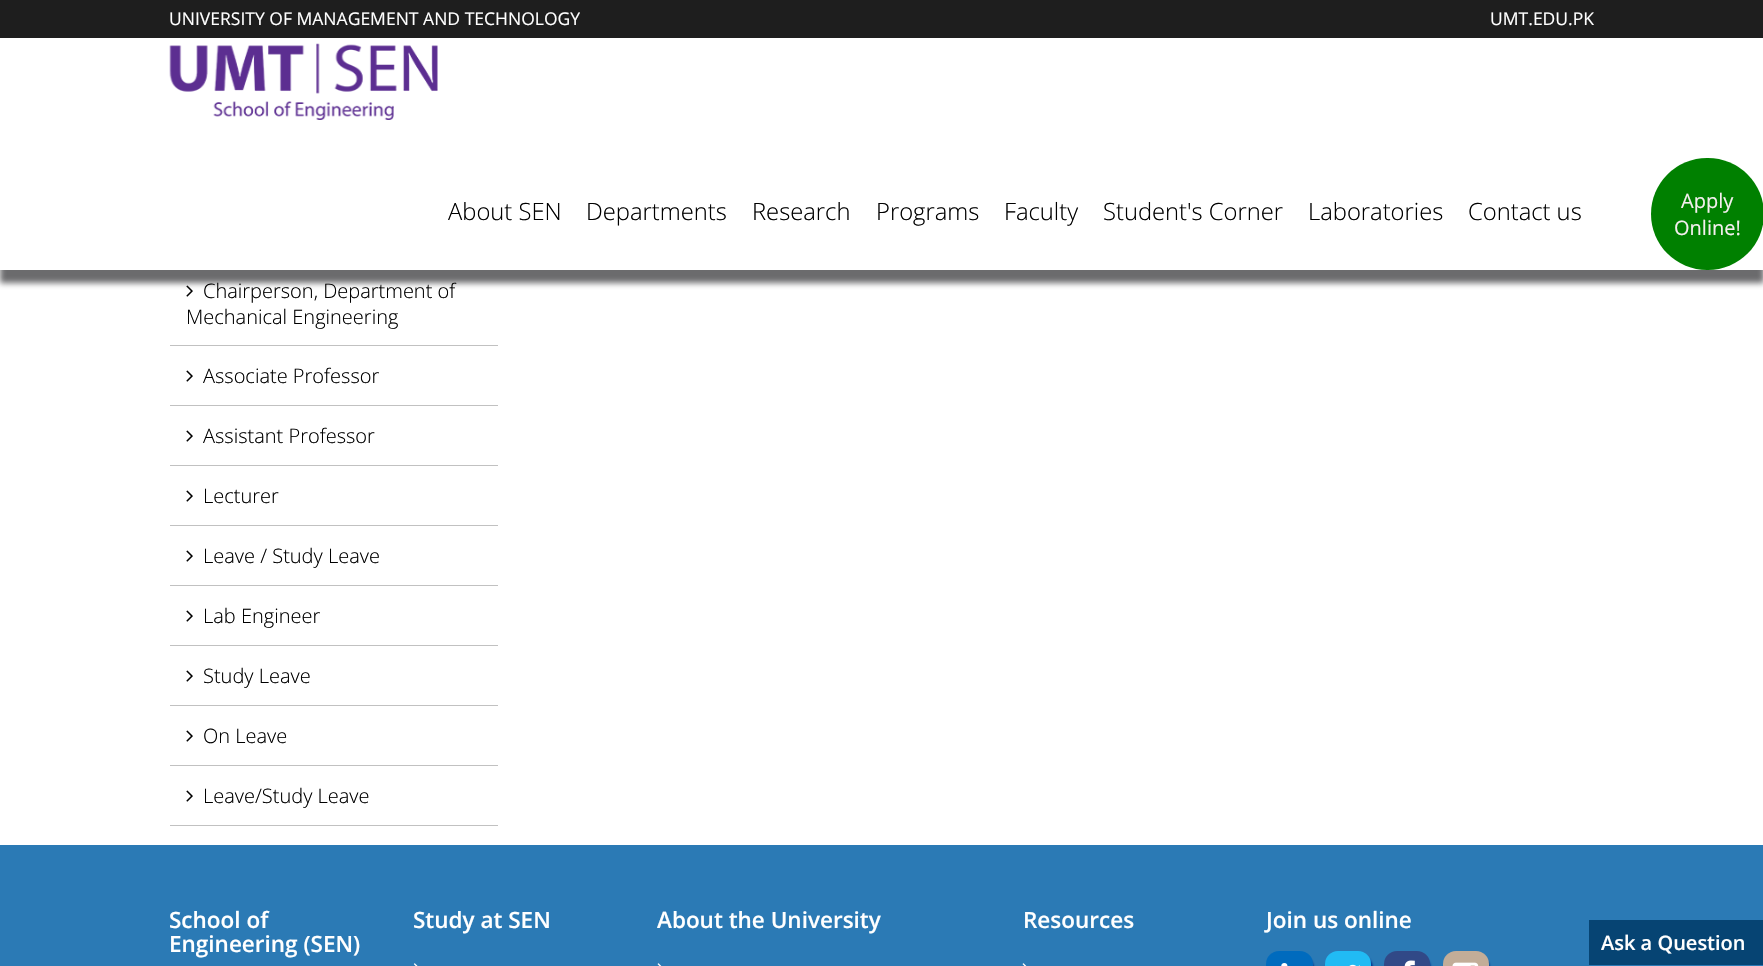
void draw(SkCanvas* canvas) {
	SkPaint fill;
	fill.setAntiAlias(true);
	auto makeFont = [&](const char* family, int weight, float size, bool italic = false) {
		SkFontStyle style(weight, SkFontStyle::kNormal_Width,
			italic ? SkFontStyle::kItalic_Slant : SkFontStyle::kUpright_Slant);
		SkFont result(fontMgr->matchFamilyStyle(family, style), size);
		result.setSubpixel(true);
		return result;
	};
	auto text = [&](const char* s, float x, float y, const SkFont& font) {
		canvas->drawString(s, x, y, font, fill);
	};
	auto box = [&](float l, float t, float r, float b) {
		canvas->drawRect(SkRect::MakeLTRB(l, t, r, b), fill);
	};
	auto roundBox = [&](float l, float t, float r, float b, float radius) {
		canvas->drawRoundRect(SkRect::MakeLTRB(l, t, r, b), radius, radius, fill);
	};
	auto picture = [&](const char* path, float l, float t, float r, float b) {
		auto image = SkImages::DeferredFromEncodedData(SkData::MakeFromFileName(path));
		canvas->drawImageRect(image, SkRect::MakeLTRB(l, t, r, b), SkSamplingOptions());
	};
	canvas->clear(0xFFFFFFFF);
	picture("image1.png", 186, 285, 193, 297);
	fill.setColor(0xBF393A3C);
	fill.setMaskFilter(SkMaskFilter::MakeBlur(kNormal_SkBlurStyle, 3));
	canvas->drawRect(SkRect::MakeLTRB(0, 13, 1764, 283), fill);
	fill.setMaskFilter(nullptr);
	fill.setColor(0xFFFFFFFF);
	box(0, 38, 1763, 270);
	fill.setColor(0xFF1E1E1E);
	box(0, 0, 1763, 38);
	picture("image0.png", 169, 43, 438, 120);
	fill.setColor(0xFF008000);
	roundBox(1651, 158, 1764, 270, 56);
	fill.setColor(0xFFC1C1C1);
	box(170, 345, 498, 346);
	box(170, 405, 498, 406);
	picture("image1.png", 186, 370, 193, 382);
	box(170, 465, 498, 466);
	picture("image1.png", 186, 430, 193, 442);
	box(170, 525, 498, 526);
	picture("image1.png", 186, 490, 193, 502);
	box(170, 585, 498, 586);
	picture("image1.png", 186, 550, 193, 562);
	box(170, 645, 498, 646);
	picture("image1.png", 186, 610, 193, 622);
	box(170, 705, 498, 706);
	picture("image1.png", 186, 670, 193, 682);
	box(170, 765, 498, 766);
	picture("image1.png", 186, 730, 193, 742);
	box(170, 825, 498, 826);
	picture("image1.png", 186, 790, 193, 802);
	fill.setColor(0xFF2B7AB5);
	box(0, 845, 1763, 966);
	picture("image2.png", 413, 963, 418, 966);
	picture("image3.png", 657, 963, 662, 966);
	picture("image3.png", 1022, 963, 1027, 966);
	fill.setColor(0xFF003892);
	fill.setMaskFilter(SkMaskFilter::MakeBlur(kNormal_SkBlurStyle, 1));
	canvas->drawRoundRect(SkRect::MakeLTRB(1268, 955, 1314, 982), 13, 13, fill);
	fill.setMaskFilter(nullptr);
	fill.setColor(0xFF006BBE);
	roundBox(1266, 951, 1313, 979, 13);
	picture("image4.png", 1281, 963, 1288, 966);
	fill.setColor(0xFF003892);
	fill.setMaskFilter(SkMaskFilter::MakeBlur(kNormal_SkBlurStyle, 1));
	canvas->drawRoundRect(SkRect::MakeLTRB(1326, 955, 1373, 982), 13, 13, fill);
	fill.setMaskFilter(nullptr);
	fill.setColor(0xFF21BBF4);
	roundBox(1325, 951, 1371, 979, 13);
	picture("image5.png", 1336, 964, 1360, 966);
	fill.setColor(0xFF003892);
	fill.setMaskFilter(SkMaskFilter::MakeBlur(kNormal_SkBlurStyle, 1));
	canvas->drawRoundRect(SkRect::MakeLTRB(1385, 955, 1431, 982), 13, 13, fill);
	fill.setMaskFilter(nullptr);
	fill.setColor(0xFF314987);
	roundBox(1384, 951, 1430, 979, 13);
	picture("image6.png", 1404, 960, 1415, 966);
	fill.setColor(0xFF003892);
	fill.setMaskFilter(SkMaskFilter::MakeBlur(kNormal_SkBlurStyle, 1));
	canvas->drawRoundRect(SkRect::MakeLTRB(1444, 955, 1490, 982), 13, 13, fill);
	fill.setMaskFilter(nullptr);
	fill.setColor(0xFFC2AD98);
	roundBox(1443, 951, 1489, 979, 13);
	picture("image7.png", 1452, 962, 1479, 966);
	fill.setColor(0xFF064473);
	box(1589, 920, 1763, 965);
	auto font1 = makeFont("Open Sans", 400, 17.5f);
	fill.setColor(0xFFFFFFFF);
	text("UNIVERSITY OF MANAGEMENT AND TECHNOLOGY", 169, 25, font1);
	text("UMT.EDU.PK", 1490, 25, font1);
	auto font2 = makeFont("Open Sans", 300, 23.75f);
	fill.setColor(0xFF000000);
	text("About SEN", 448, 220, font2);
	text("Departments", 586, 220, font2);
	text("Research", 752, 220, font2);
	text("Programs", 876, 220, font2);
	text("Faculty", 1004, 220, font2);
	text("Student's Corner", 1103, 220, font2);
	text("Laboratories", 1308, 220, font2);
	text("Contact us", 1468, 220, font2);
	auto font3 = makeFont("Open Sans", 400, 20);
	fill.setColor(0xFFF5EFEF);
	text("Apply", 1681, 208, font3);
	text("Online!", 1674, 235, font3);
	auto font4 = makeFont("Open Sans", 300, 20);
	fill.setColor(0xFF000000);
	text("Chairperson, Department of", 203, 298, font4);
	text("Mechanical Engineering", 186, 324, font4);
	text("Associate Professor", 203, 383, font4);
	text("Assistant Professor", 203, 443, font4);
	text("Lecturer", 203, 503, font4);
	text("Leave / Study Leave", 203, 563, font4);
	text("Lab Engineer", 203, 623, font4);
	text("Study Leave", 203, 683, font4);
	text("On Leave", 203, 743, font4);
	text("Leave/Study Leave", 203, 803, font4);
	auto font5 = makeFont("Open Sans", 600, 22.5f);
	fill.setColor(0xFFFFFFFF);
	text("School of", 169, 928, font5);
	text("Engineering (SEN)", 169, 952, font5);
	text("Study at SEN", 413, 928, font5);
	text("About the University", 657, 928, font5);
	text("Resources", 1023, 928, font5);
	text("Join us online", 1266, 928, font5);
	auto font6 = makeFont("Open Sans", 600, 20);
	text("Ask a Question", 1601, 950, font6);
}
